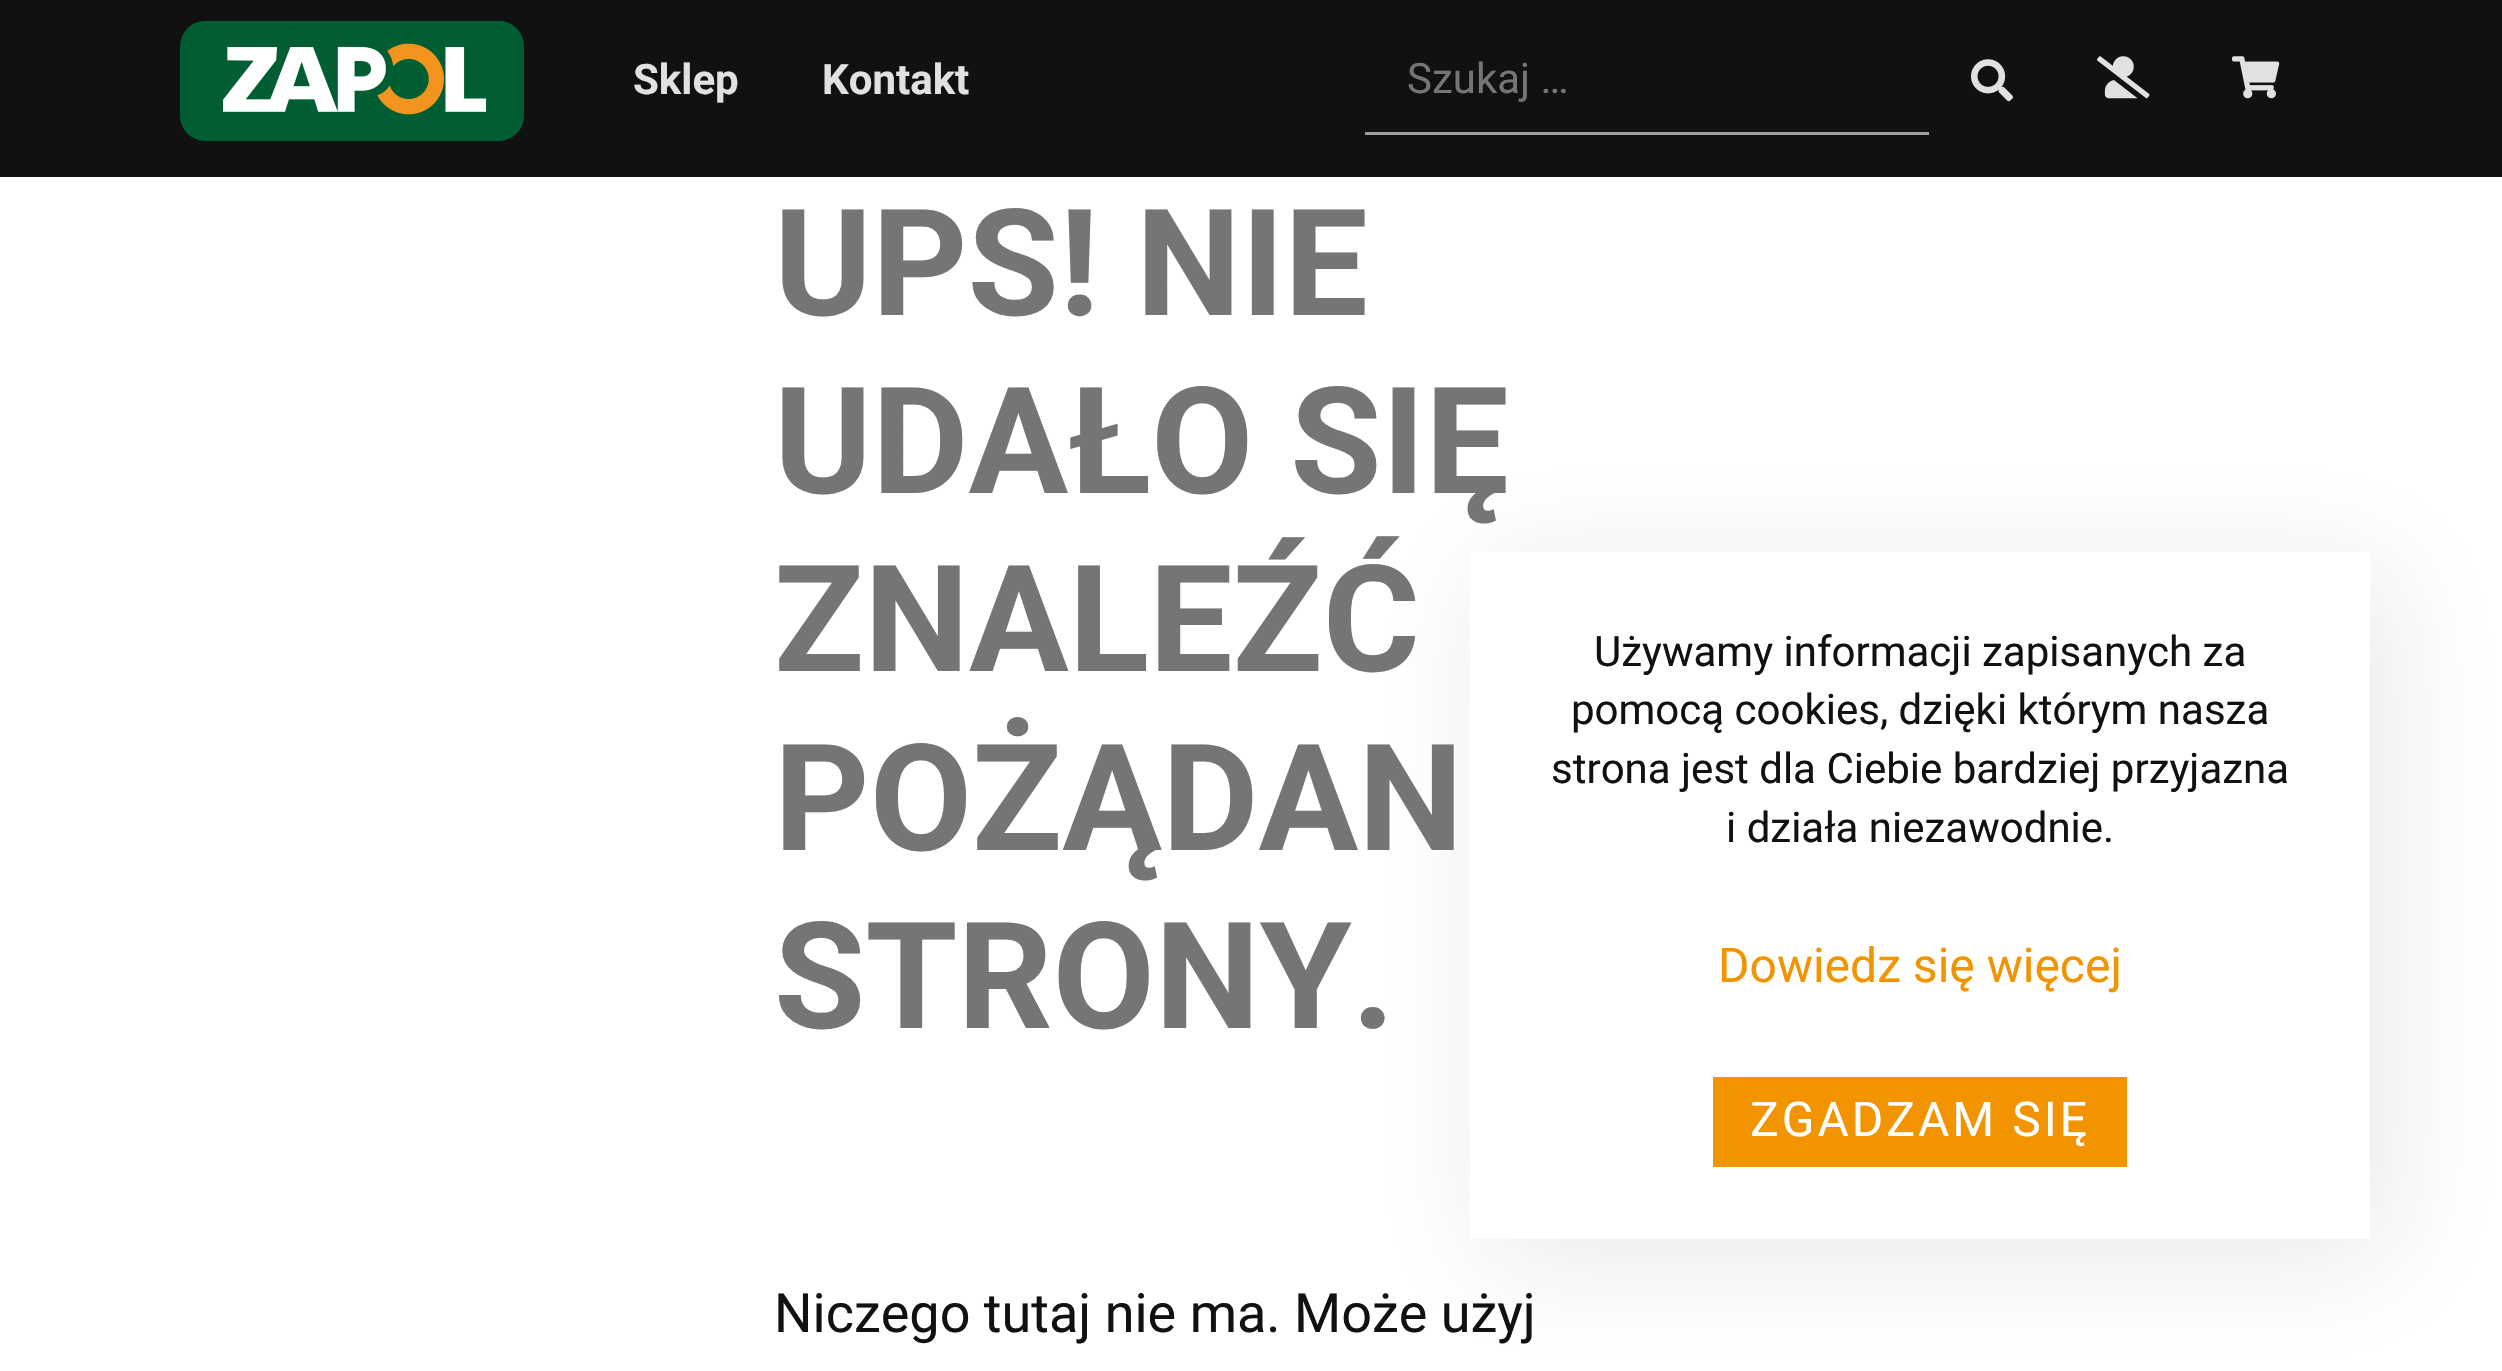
void draw(SkCanvas* canvas) {
	SkPaint fill;
	fill.setAntiAlias(true);
	auto makeFont = [&](const char* family, int weight, float size, bool italic = false) {
		SkFontStyle style(weight, SkFontStyle::kNormal_Width,
			italic ? SkFontStyle::kItalic_Slant : SkFontStyle::kUpright_Slant);
		SkFont result(fontMgr->matchFamilyStyle(family, style), size);
		result.setSubpixel(true);
		return result;
	};
	auto text = [&](const char* s, float x, float y, const SkFont& font) {
		canvas->drawString(s, x, y, font, fill);
	};
	auto spacedText = [&](const char* s, float x, float y, const SkFont& font, const SkPaint& ink, float letter, float word) {
		std::vector<SkGlyphID> glyphs(font.countText(s, strlen(s), SkTextEncoding::kUTF8));
		std::vector<float> xs(glyphs.size());
		font.textToGlyphs(s, strlen(s), SkTextEncoding::kUTF8, glyphs);
		font.getXPos(glyphs, xs, x);
		float extra = 0;
		for (size_t i = 0; i < glyphs.size(); i++) {
			xs[i] += extra;
			extra += letter + word * (glyphs[i] == font.unicharToGlyph(' '));
		}
		canvas->drawTextBlob(SkTextBlob::MakeFromPosHGlyphs(glyphs, xs, y, font), 0, 0, ink);
	};
	auto box = [&](float l, float t, float r, float b) {
		canvas->drawRect(SkRect::MakeLTRB(l, t, r, b), fill);
	};
	auto picture = [&](const char* path, float l, float t, float r, float b) {
		auto image = SkImages::DeferredFromEncodedData(SkData::MakeFromFileName(path));
		canvas->drawImageRect(image, SkRect::MakeLTRB(l, t, r, b), SkSamplingOptions());
	};
	canvas->clear(0xFFFFFFFF);
	fill.setColor(0xFF111111);
	box(0, 0, 2502, 177);
	picture("image0.png", 180, 21, 524, 141);
	fill.setColor(0xFF9D9D9D);
	box(1365, 132, 1929, 135);
	picture("image1.png", 1971, 59, 2013, 102);
	picture("image2.png", 2097, 56, 2150, 99);
	picture("image3.png", 2232, 56, 2280, 99);
	fill.setColor(0x1A1E1E24);
	fill.setMaskFilter(SkMaskFilter::MakeBlur(kNormal_SkBlurStyle, 57));
	canvas->drawRect(SkRect::MakeLTRB(1488, 570, 2388, 1257), fill);
	fill.setMaskFilter(nullptr);
	fill.setColor(0xFFFFFFFF);
	box(1470, 552, 2370, 1239);
	fill.setColor(0xFFF29400);
	box(1713, 1077, 2127, 1167);
	auto font1 = makeFont("Roboto", 700, 42);
	fill.setColor(0xFFE1E1E1);
	text("Sklep", 633, 94, font1);
	text("Kontakt", 822, 94, font1);
	auto font2 = makeFont("Roboto", 400, 42);
	fill.setColor(0xFF757575);
	text("Szukaj …", 1407, 93, font2);
	auto font3 = makeFont("Roboto", 700, 148.5f);
	text("UPS! NIE", 774, 315, font3);
	text("UDAŁO SIĘ", 774, 493, font3);
	text("ZNALEŹĆ", 774, 671, font3);
	text("POŻĄDAN", 774, 850, font3);
	text("STRONY.", 774, 1028, font3);
	auto font4 = makeFont("Roboto", 400, 54);
	fill.setColor(0xFF111111);
	text("Niczego tutaj nie ma. Może użyj", 774, 1332, font4);
	text("Używamy informacji zapisanych za", 1594, 666, font2);
	text("pomocą cookies, dzięki którym nasza", 1571, 724, font2);
	text("strona jest dla Ciebie bardziej przyjazna", 1551, 783, font2);
	text("i działa niezawodnie.", 1726, 842, font2);
	auto font5 = makeFont("Roboto", 400, 48);
	fill.setColor(0xFFF29400);
	text("Dowiedz się więcej", 1718, 982, font5);
	fill.setColor(0xFFFFFFFF);
	spacedText("ZGADZAM SIĘ", 1750, 1136, font5, fill, 3, 0);
}
